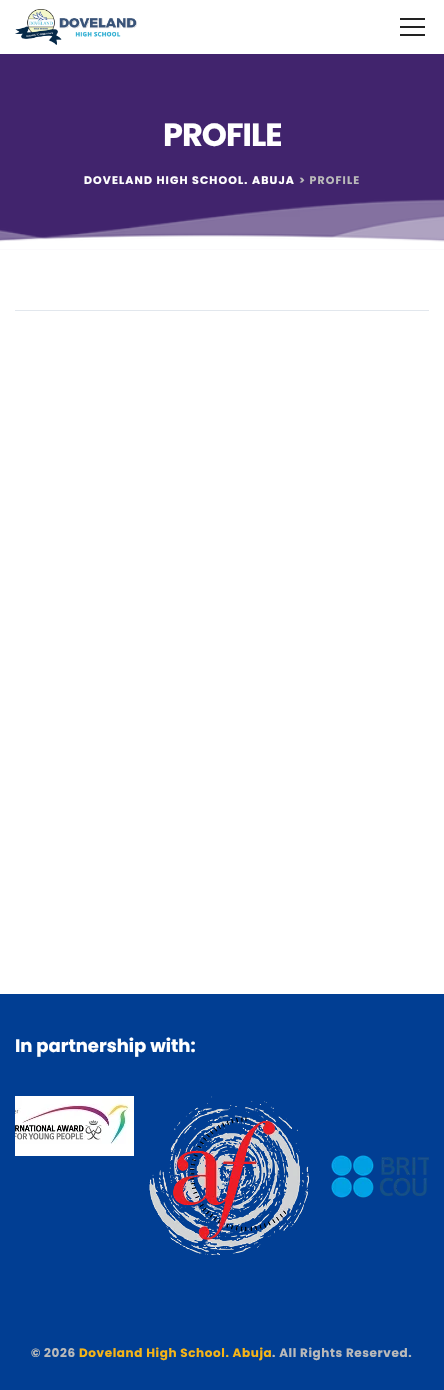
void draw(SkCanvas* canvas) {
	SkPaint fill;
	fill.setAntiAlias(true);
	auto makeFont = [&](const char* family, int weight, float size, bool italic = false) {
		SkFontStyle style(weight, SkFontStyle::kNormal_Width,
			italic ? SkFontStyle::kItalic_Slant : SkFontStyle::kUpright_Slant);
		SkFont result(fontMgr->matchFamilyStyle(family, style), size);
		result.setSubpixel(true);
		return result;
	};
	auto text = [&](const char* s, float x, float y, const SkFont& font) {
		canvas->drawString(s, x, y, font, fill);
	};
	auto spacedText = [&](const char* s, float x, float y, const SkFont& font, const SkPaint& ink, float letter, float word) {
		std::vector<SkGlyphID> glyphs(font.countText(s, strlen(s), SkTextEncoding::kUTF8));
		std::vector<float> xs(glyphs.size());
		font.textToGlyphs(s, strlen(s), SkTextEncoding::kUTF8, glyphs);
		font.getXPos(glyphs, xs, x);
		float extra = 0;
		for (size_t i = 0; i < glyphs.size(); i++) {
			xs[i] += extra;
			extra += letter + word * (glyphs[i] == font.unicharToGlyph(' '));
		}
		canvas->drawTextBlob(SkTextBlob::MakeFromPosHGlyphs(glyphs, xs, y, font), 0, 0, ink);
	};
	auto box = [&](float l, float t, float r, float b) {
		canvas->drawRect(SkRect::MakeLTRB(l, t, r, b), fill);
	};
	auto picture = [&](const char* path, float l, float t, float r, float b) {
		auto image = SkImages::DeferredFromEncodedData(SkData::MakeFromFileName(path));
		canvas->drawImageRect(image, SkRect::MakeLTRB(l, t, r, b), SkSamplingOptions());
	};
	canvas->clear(0xFFFFFFFF);
	picture("image0.png", 15, 9, 137, 45);
	fill.setColor(0xFF222222);
	box(400, 18, 425, 20);
	box(400, 26, 425, 28);
	box(400, 34, 425, 36);
	fill.setColor(0xFF41246D);
	box(0, 54, 444, 250);
	picture("image1.png", 0, 199, 444, 250);
	fill.setColor(0xFFE2E7ED);
	box(15, 310, 429, 311);
	fill.setColor(0xFF013E93);
	box(0, 994, 444, 1390);
	picture("image2.png", 15, 1096, 134, 1156);
	picture("image3.png", 149, 1096, 309, 1255);
	picture("image4.png", 331, 1155, 429, 1198);
	auto font1 = makeFont("Poppins", 700, 32);
	fill.setColor(0xFFFFFFFF);
	spacedText("PROFILE", 163, 146, font1, fill, -1, 0);
	auto font2 = makeFont("Poppins", 700, 11);
	spacedText("DOVELAND HIGH SCHOOL. ABUJA", 84, 184, font2, fill, 1.1f, 0);
	fill.setColor(0xFFBABABA);
	spacedText("> PROFILE", 299, 184, font2, fill, 1.1f, 0);
	auto font3 = makeFont("Poppins", 700, 18);
	fill.setColor(0xFFFFFFFF);
	text("In partnership with:", 15, 1052, font3);
	auto font4 = makeFont("Poppins", 700, 12);
	fill.setColor(0xFFBABABA);
	spacedText("© 2026", 31, 1357, font4, fill, 0.6f, 0);
	fill.setColor(0xFFF5B417);
	spacedText("Doveland High School. Abuja", 79, 1357, font4, fill, 0.6f, 0);
	fill.setColor(0xFFBABABA);
	spacedText(". All Rights Reserved.", 272, 1357, font4, fill, 0.6f, 0);
}
